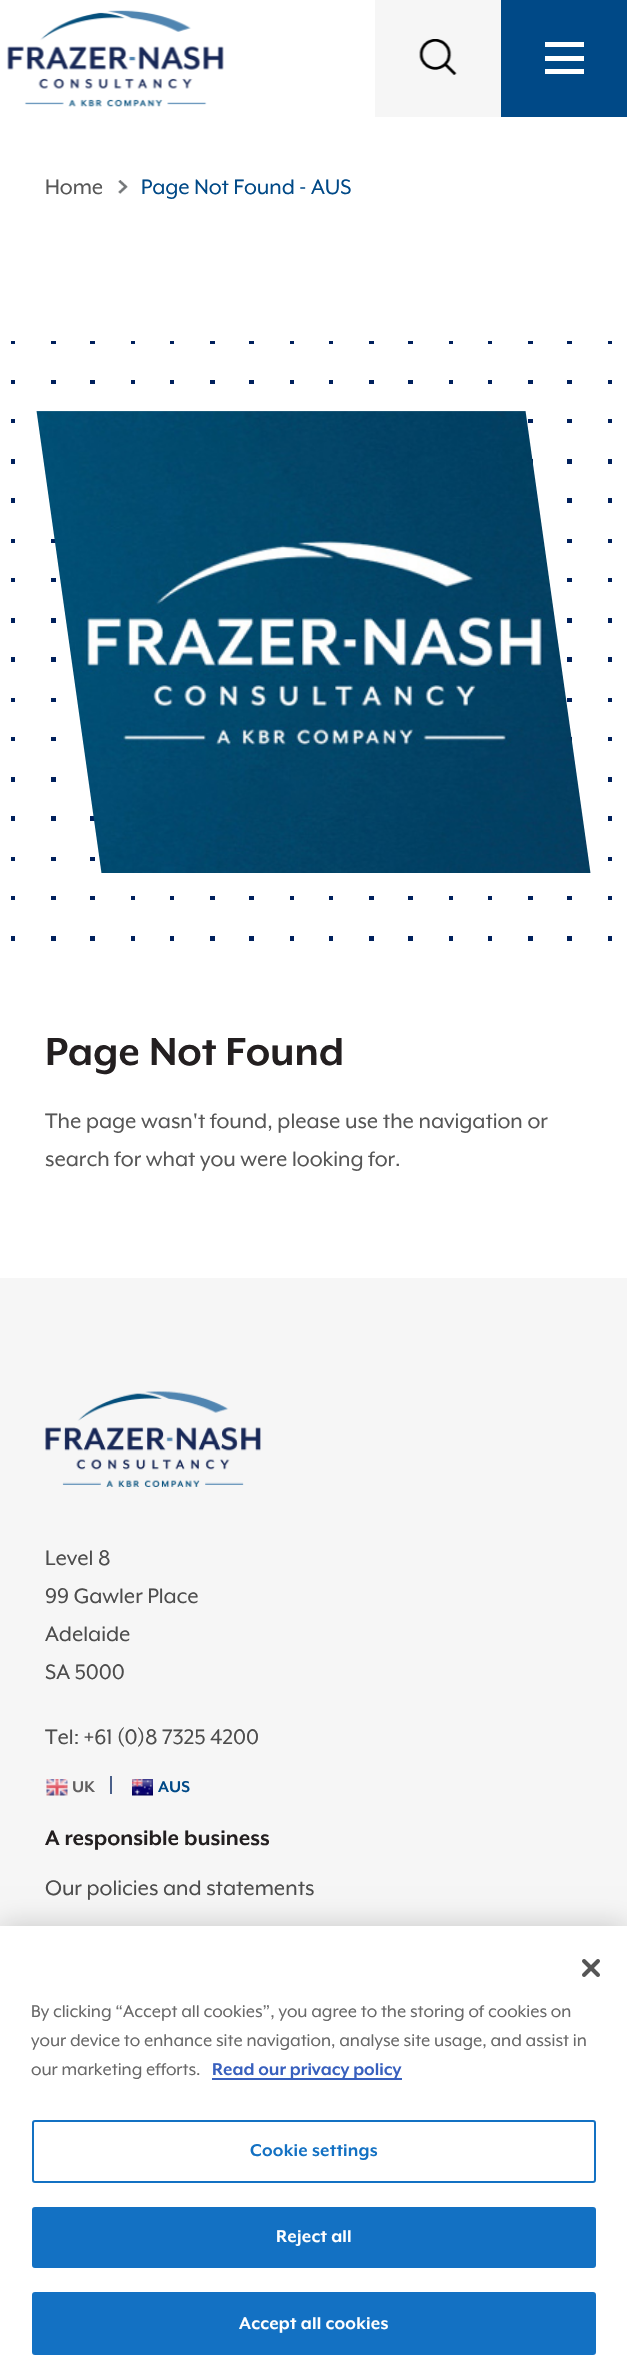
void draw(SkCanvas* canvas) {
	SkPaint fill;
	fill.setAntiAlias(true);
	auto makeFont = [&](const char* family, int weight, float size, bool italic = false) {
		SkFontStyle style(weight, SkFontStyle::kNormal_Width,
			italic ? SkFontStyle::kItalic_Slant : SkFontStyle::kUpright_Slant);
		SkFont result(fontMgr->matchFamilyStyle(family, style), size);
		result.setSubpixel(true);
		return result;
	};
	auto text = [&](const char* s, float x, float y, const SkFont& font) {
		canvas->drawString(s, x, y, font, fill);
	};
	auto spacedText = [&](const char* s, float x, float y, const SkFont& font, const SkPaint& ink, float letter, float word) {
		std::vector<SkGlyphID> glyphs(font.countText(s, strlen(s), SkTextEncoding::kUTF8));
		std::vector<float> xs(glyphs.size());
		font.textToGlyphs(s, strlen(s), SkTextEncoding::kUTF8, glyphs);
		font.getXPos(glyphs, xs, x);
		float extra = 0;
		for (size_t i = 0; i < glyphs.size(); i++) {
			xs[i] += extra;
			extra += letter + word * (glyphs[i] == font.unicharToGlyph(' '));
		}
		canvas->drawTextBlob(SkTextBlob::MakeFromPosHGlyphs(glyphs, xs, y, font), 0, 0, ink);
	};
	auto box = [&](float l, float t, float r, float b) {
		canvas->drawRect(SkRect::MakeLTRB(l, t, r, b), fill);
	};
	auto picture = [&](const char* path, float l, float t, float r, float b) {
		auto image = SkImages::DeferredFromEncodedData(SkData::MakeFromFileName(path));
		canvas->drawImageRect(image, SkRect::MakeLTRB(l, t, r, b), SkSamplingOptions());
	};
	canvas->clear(0xFFFFFFFF);
	picture("image0.png", 7, 10, 224, 107);
	fill.setColor(0xFFF6F6F6);
	box(375, 0, 501, 117);
	picture("image1.png", 419, 39, 457, 75);
	fill.setColor(0xFF004987);
	box(501, 0, 627, 117);
	fill.setColor(0xFFFFFFFF);
	box(545, 42, 584, 47);
	box(545, 56, 584, 61);
	box(545, 69, 584, 74);
	picture("image2.png", 118, 180, 128, 194);
	fill.setColor(0xFF00205C);
	box(11, 341, 612, 941);
	fill.setColor(0xFFFFFFFF);
	box(11, 344, 612, 380);
	box(11, 384, 612, 419);
	box(11, 423, 612, 459);
	box(11, 464, 612, 498);
	box(11, 503, 612, 539);
	box(11, 543, 612, 578);
	box(11, 582, 612, 618);
	box(11, 623, 612, 657);
	box(11, 662, 612, 698);
	box(11, 702, 612, 737);
	box(11, 741, 612, 777);
	box(11, 782, 612, 816);
	box(11, 821, 612, 857);
	box(11, 861, 612, 896);
	box(11, 900, 612, 936);
	box(15, 341, 51, 941);
	box(56, 341, 90, 941);
	box(95, 341, 131, 941);
	box(135, 341, 170, 941);
	box(174, 341, 210, 941);
	box(215, 341, 249, 941);
	box(254, 341, 290, 941);
	box(294, 341, 329, 941);
	box(333, 341, 369, 941);
	box(374, 341, 408, 941);
	box(413, 341, 449, 941);
	box(453, 341, 488, 941);
	box(492, 341, 528, 941);
	box(533, 341, 567, 941);
	box(572, 341, 608, 941);
	picture("image3.png", 36, 411, 591, 873);
	fill.setColor(0xFFF6F6F6);
	box(0, 1278, 627, 1926);
	picture("image4.png", 45, 1391, 261, 1487);
	picture("image5.png", 46, 1779, 68, 1796);
	fill.setColor(0xFF4A608A);
	box(110, 1776, 112, 1794);
	picture("image6.png", 132, 1779, 153, 1796);
	fill.setColor(0x33000000);
	fill.setMaskFilter(SkMaskFilter::MakeBlur(kNormal_SkBlurStyle, 13.5f));
	canvas->drawRect(SkRect::MakeLTRB(0, 1926, 627, 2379), fill);
	fill.setMaskFilter(nullptr);
	fill.setColor(0xFFFFFFFF);
	box(0, 1926, 627, 2378);
	picture("image7.png", 582, 1959, 600, 1977);
	fill.setColor(0xFF3860BE);
	box(212, 2078, 402, 2080);
	fill.setStyle(SkPaint::kStroke_Style);
	fill.setStrokeWidth(2);
	fill.setColor(0xFF1371C3);
	canvas->drawRoundRect(SkRect::MakeLTRB(33, 2121, 595, 2182), 2, 2, fill);
	fill.setStyle(SkPaint::kFill_Style);
	canvas->drawRoundRect(SkRect::MakeLTRB(33, 2208, 595, 2267), 2, 2, fill);
	fill.setStyle(SkPaint::kStroke_Style);
	canvas->drawRoundRect(SkRect::MakeLTRB(33, 2208, 595, 2267), 2, 2, fill);
	fill.setStyle(SkPaint::kFill_Style);
	canvas->drawRoundRect(SkRect::MakeLTRB(33, 2293, 595, 2354), 2, 2, fill);
	fill.setStyle(SkPaint::kStroke_Style);
	canvas->drawRoundRect(SkRect::MakeLTRB(33, 2293, 595, 2354), 2, 2, fill);
	auto font1 = makeFont("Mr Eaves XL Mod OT", 400, 24);
	fill.setStyle(SkPaint::kFill_Style);
	fill.setColor(0xFF575757);
	text("Home", 45, 194, font1);
	fill.setColor(0xFF004987);
	text("Page Not Found - AUS", 141, 194, font1);
	auto font2 = makeFont("Mr Eaves XL Mod OT", 700, 45);
	fill.setColor(0xFF231F20);
	text("Page Not Found", 45, 1065, font2);
	fill.setColor(0xFF575757);
	text("The page wasn't found, please use the navigation or", 45, 1128, font1);
	text("search for what you were looking for.", 45, 1166, font1);
	fill.setColor(0xFF4D4D4D);
	text("Level 8", 45, 1565, font1);
	text("99 Gawler Place", 45, 1603, font1);
	text("Adelaide", 45, 1641, font1);
	text("SA 5000", 45, 1679, font1);
	text("Tel: +61 (0)8 7325 4200", 45, 1744, font1);
	auto font3 = makeFont("Mr Eaves XL Mod OT", 700, 18);
	fill.setColor(0xFF626060);
	text("UK", 72, 1792, font3);
	fill.setColor(0xFF004987);
	text("AUS", 158, 1792, font3);
	auto font4 = makeFont("Mr Eaves XL Mod OT", 700, 24);
	fill.setColor(0xFF231F20);
	text("A responsible business", 45, 1845, font4);
	fill.setColor(0xFF4D4D4D);
	text("Our policies and statements", 45, 1895, font1);
	auto font5 = makeFont("Mr Eaves XL Mod OT", 400, 19.5f);
	fill.setColor(0xFF696969);
	text("By clicking “Accept all cookies”, you agree to the storing of cookies on", 31, 2017, font5);
	text("your device to enhance site navigation, analyse site usage, and assist in", 31, 2046, font5);
	text("our marketing efforts.", 31, 2075, font5);
	auto font6 = makeFont("Mr Eaves XL Mod OT", 700, 19.5f);
	fill.setColor(0xFF3860BE);
	text("Read our privacy policy", 212, 2075, font6);
	fill.setColor(0xFF1371C3);
	spacedText("Cookie settings", 250, 2156, font6, fill, 0.25f, 0);
	fill.setColor(0xFFFFFFFF);
	spacedText("Reject all", 276, 2242, font6, fill, 0.25f, 0);
	spacedText("Accept all cookies", 239, 2329, font6, fill, 0.25f, 0);
}
